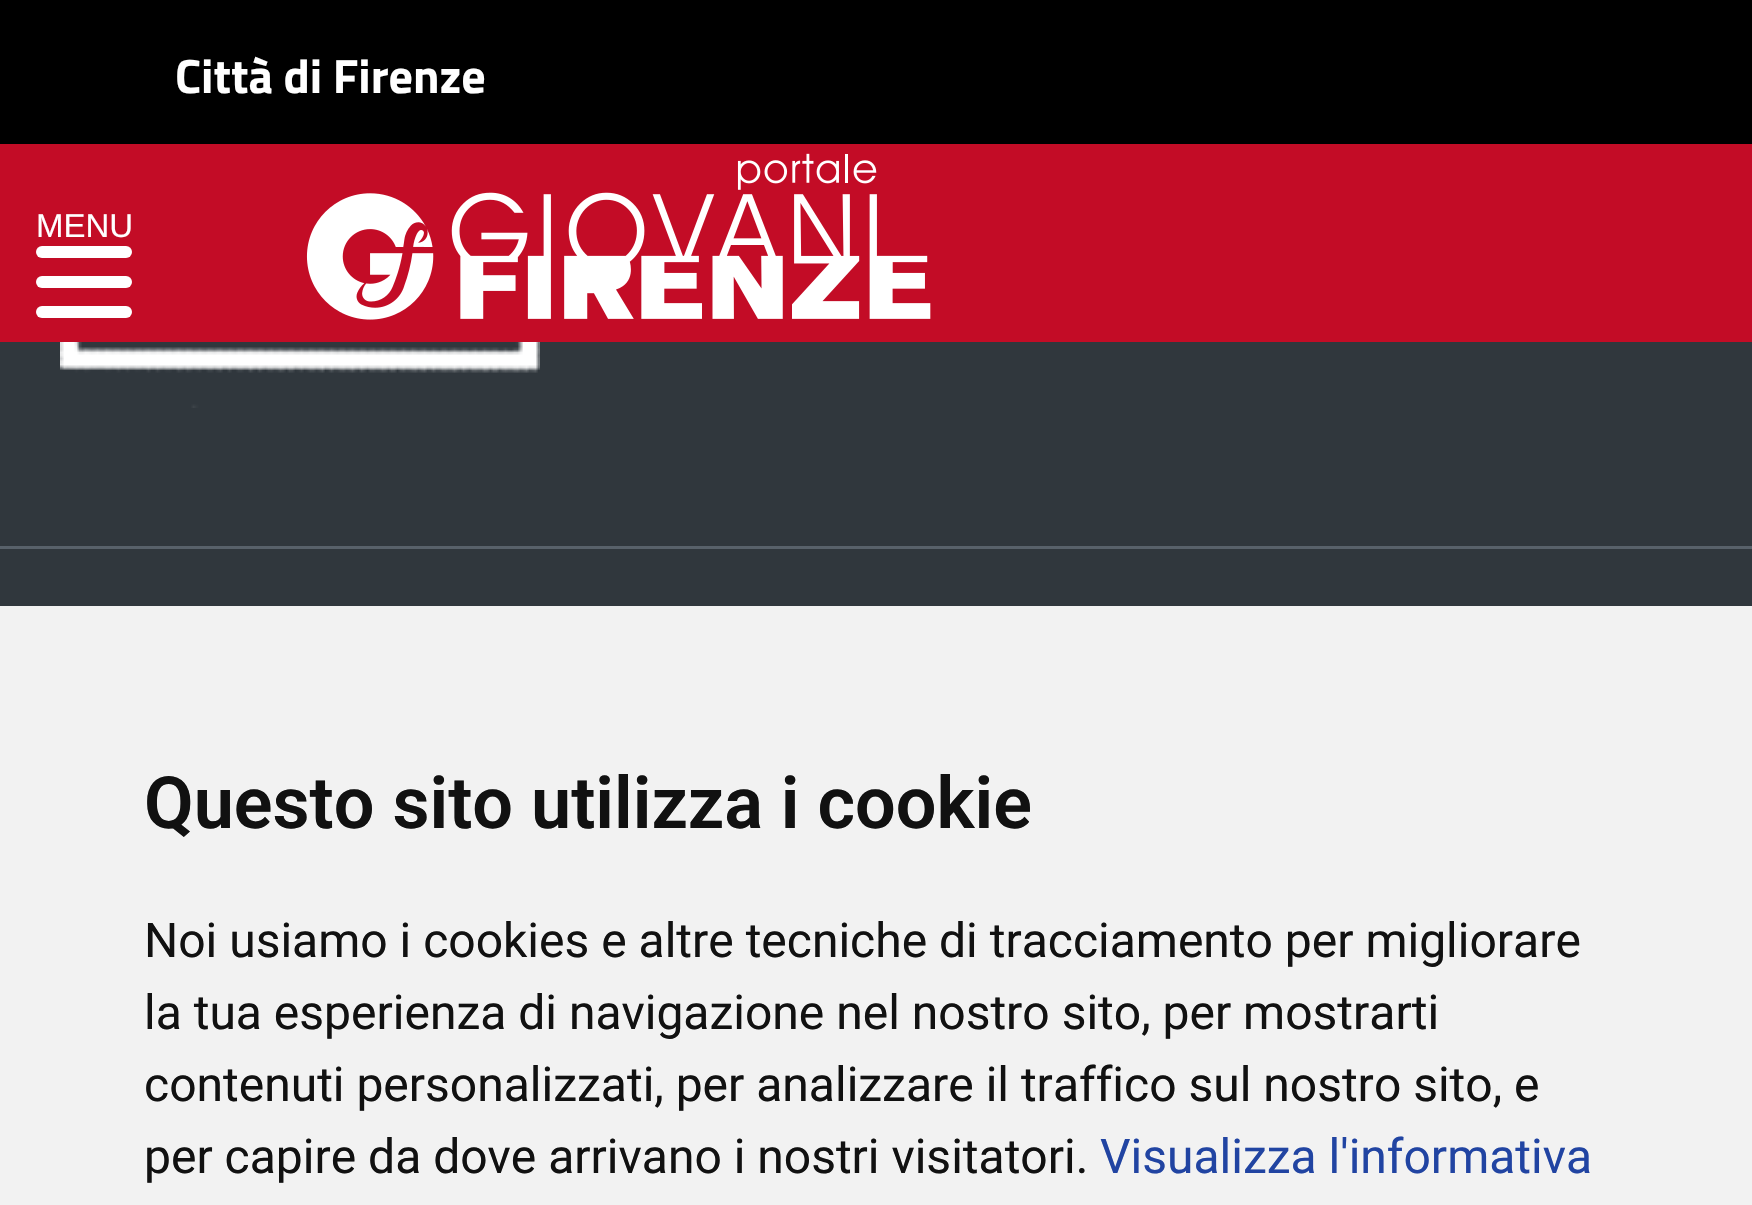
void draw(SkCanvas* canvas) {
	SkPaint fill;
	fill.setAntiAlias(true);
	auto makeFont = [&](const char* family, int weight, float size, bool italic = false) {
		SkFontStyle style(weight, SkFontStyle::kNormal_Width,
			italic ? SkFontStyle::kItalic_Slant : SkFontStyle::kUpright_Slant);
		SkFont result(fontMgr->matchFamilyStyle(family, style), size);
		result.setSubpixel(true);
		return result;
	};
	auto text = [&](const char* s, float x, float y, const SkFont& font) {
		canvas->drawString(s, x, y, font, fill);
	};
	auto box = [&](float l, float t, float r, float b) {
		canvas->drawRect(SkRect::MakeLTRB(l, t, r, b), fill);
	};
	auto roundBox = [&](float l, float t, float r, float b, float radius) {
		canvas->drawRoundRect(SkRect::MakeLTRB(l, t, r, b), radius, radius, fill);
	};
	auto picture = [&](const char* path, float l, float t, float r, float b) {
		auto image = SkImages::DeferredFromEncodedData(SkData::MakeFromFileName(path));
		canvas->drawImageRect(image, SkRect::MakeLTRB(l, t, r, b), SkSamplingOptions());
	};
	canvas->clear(0xFF30373D);
	fill.setColor(0xFFC30C26);
	box(0, 144, 1752, 342);
	fill.setColor(0xFF000000);
	box(0, 0, 1752, 144);
	picture("image0.png", 306, 153, 931, 320);
	fill.setColor(0xFFFFFFFF);
	roundBox(36, 276, 132, 288, 6);
	roundBox(36, 246, 132, 258, 6);
	roundBox(36, 306, 132, 318, 6);
	picture("image1.png", 60, 342, 540, 408);
	fill.setColor(0xFF58616A);
	box(0, 546, 1752, 549);
	fill.setColor(0xFFF2F2F2);
	box(0, 606, 1752, 1205);
	auto font1 = makeFont("Titillium Web", 700, 48);
	fill.setColor(0xFFFFFFFF);
	text("Città di Firenze", 175, 93, font1);
	auto font2 = makeFont("Liberation Sans", 400, 33);
	text("MENU", 36, 237, font2);
	auto font3 = makeFont("Roboto", 600, 72);
	fill.setColor(0xFF111111);
	text("Questo sito utilizza i cookie", 144, 828, font3);
	auto font4 = makeFont("Roboto", 400, 48);
	text("Noi usiamo i cookies e altre tecniche di tracciamento per migliorare", 144, 957, font4);
	text("la tua esperienza di navigazione nel nostro sito, per mostrarti", 144, 1029, font4);
	text("contenuti personalizzati, per analizzare il traffico sul nostro sito, e", 144, 1101, font4);
	text("per capire da dove arrivano i nostri visitatori.", 144, 1173, font4);
	fill.setColor(0xFF2144A2);
	text("Visualizza l'informativa", 1100, 1173, font4);
}
